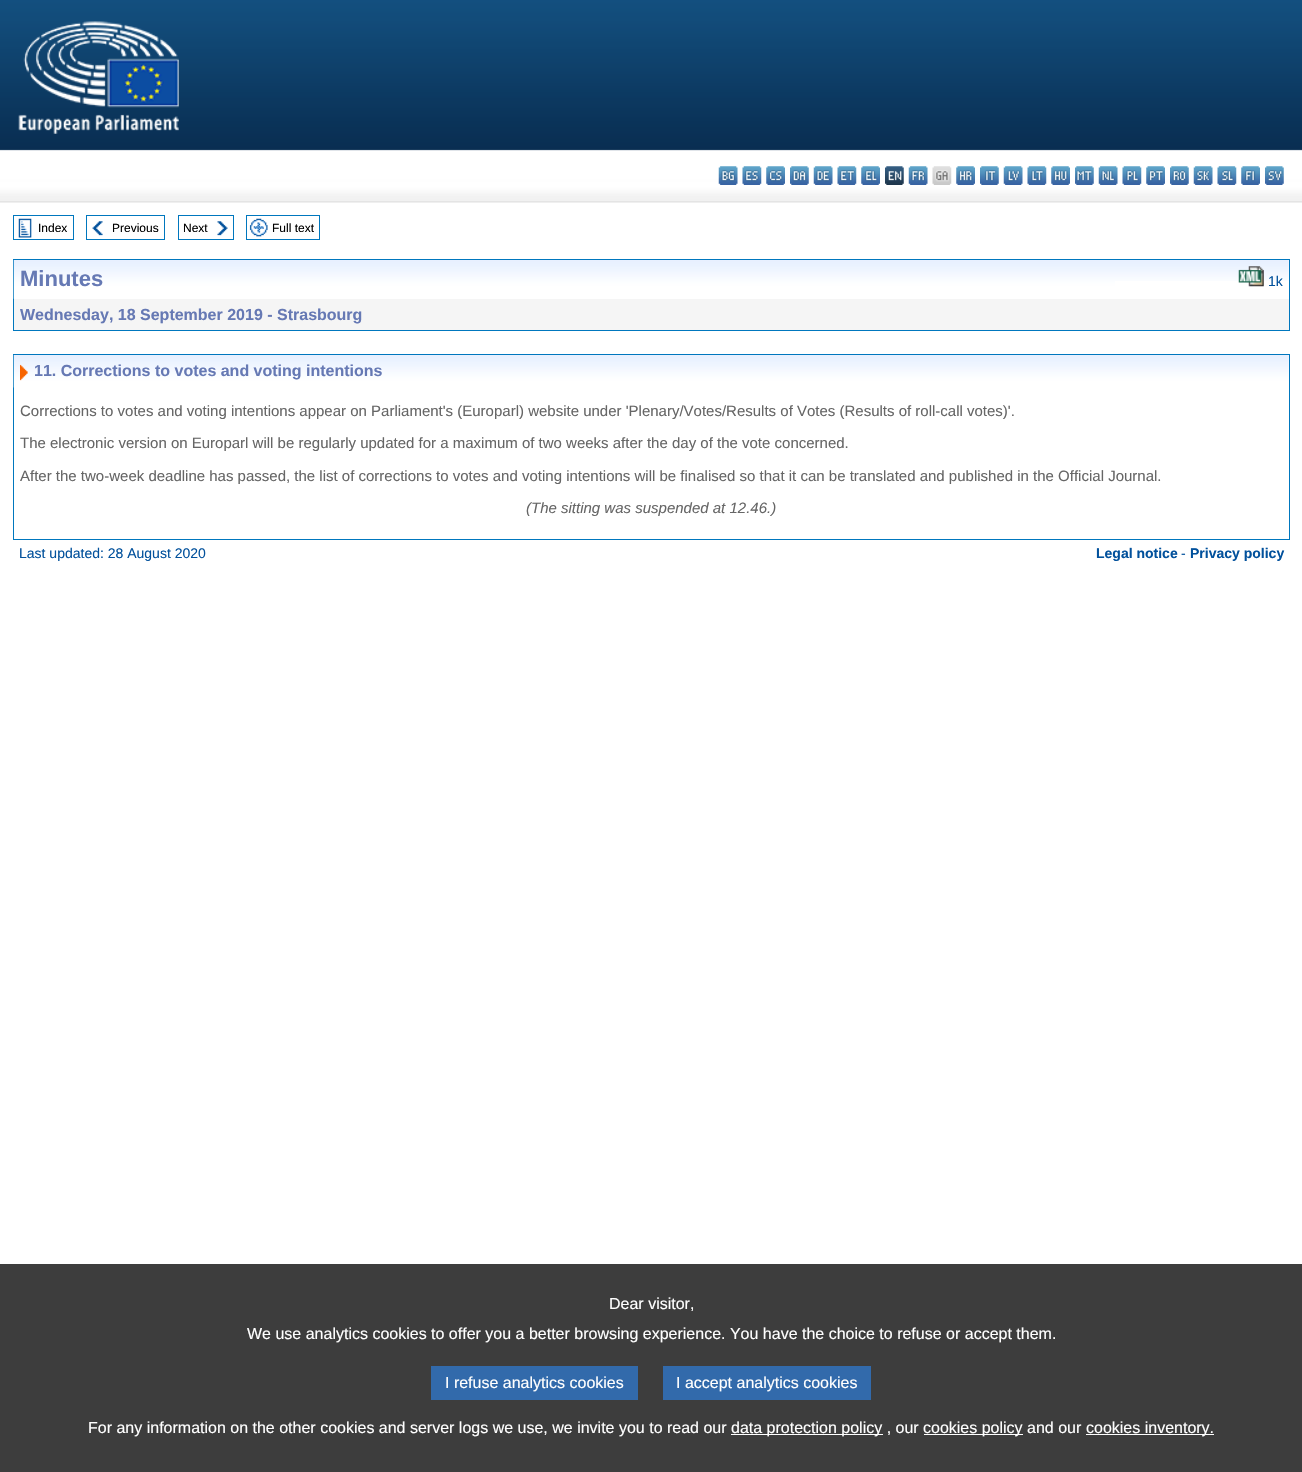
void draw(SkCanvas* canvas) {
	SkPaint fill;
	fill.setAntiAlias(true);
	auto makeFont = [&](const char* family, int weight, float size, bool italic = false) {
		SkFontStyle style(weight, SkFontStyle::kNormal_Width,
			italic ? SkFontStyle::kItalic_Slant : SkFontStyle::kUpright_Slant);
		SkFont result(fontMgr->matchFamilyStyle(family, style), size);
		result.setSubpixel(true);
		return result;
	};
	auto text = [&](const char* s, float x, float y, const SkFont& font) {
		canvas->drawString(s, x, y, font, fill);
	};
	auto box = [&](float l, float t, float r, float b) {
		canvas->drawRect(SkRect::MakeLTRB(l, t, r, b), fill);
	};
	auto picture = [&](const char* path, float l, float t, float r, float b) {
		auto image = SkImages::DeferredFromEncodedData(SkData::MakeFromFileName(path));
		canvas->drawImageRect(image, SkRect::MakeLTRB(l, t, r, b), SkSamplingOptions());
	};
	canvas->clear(0xFFFFFFFF);
	picture("image0.png", 0, 0, 1302, 203);
	picture("image1.png", 18, 21, 179, 134);
	picture("image2.png", 718, 166, 738, 185);
	picture("image3.png", 742, 166, 762, 185);
	picture("image4.png", 766, 166, 785, 185);
	picture("image5.png", 790, 166, 809, 185);
	picture("image6.png", 813, 166, 833, 185);
	picture("image7.png", 837, 166, 857, 185);
	picture("image8.png", 861, 166, 880, 185);
	picture("image9.png", 885, 166, 904, 185);
	picture("image10.png", 908, 166, 928, 185);
	picture("image11.png", 932, 166, 952, 185);
	picture("image12.png", 956, 166, 975, 185);
	picture("image13.png", 980, 166, 999, 185);
	picture("image14.png", 1003, 166, 1023, 185);
	picture("image15.png", 1027, 166, 1047, 185);
	picture("image16.png", 1051, 166, 1070, 185);
	picture("image17.png", 1075, 166, 1094, 185);
	picture("image18.png", 1098, 166, 1118, 185);
	picture("image19.png", 1122, 166, 1142, 185);
	picture("image20.png", 1146, 166, 1165, 185);
	picture("image21.png", 1170, 166, 1189, 185);
	picture("image22.png", 1193, 166, 1213, 185);
	picture("image23.png", 1217, 166, 1237, 185);
	picture("image24.png", 1241, 166, 1260, 185);
	picture("image25.png", 1265, 166, 1284, 185);
	fill.setStyle(SkPaint::kStroke_Style);
	fill.setStrokeWidth(1);
	fill.setColor(0xFF0077BE);
	canvas->drawRect(SkRect::MakeLTRB(13.5f, 215.5f, 73.5f, 239.5f), fill);
	picture("image26.png", 18, 218, 32, 238);
	canvas->drawRect(SkRect::MakeLTRB(86.5f, 215.5f, 164.5f, 239.5f), fill);
	picture("image27.png", 92, 221, 103, 236);
	canvas->drawRect(SkRect::MakeLTRB(178.5f, 215.5f, 233.5f, 239.5f), fill);
	picture("image28.png", 217, 221, 228, 236);
	canvas->drawRect(SkRect::MakeLTRB(246.5f, 215.5f, 319.5f, 239.5f), fill);
	picture("image29.png", 249, 218, 268, 237);
	canvas->drawRect(SkRect::MakeLTRB(13.5f, 259.5f, 1289.5f, 330.5f), fill);
	picture("image30.png", 13, 260, 1115, 299);
	picture("image31.png", 1115, 260, 1289, 281);
	picture("image32.png", 1238, 266, 1264, 287);
	fill.setStyle(SkPaint::kFill_Style);
	fill.setColor(0xFFF5F5F5);
	box(14, 299, 1289, 330);
	fill.setStyle(SkPaint::kStroke_Style);
	fill.setColor(0xFF0077BE);
	canvas->drawRect(SkRect::MakeLTRB(13.5f, 354.5f, 1289.5f, 539.5f), fill);
	picture("image33.png", 13, 355, 1289, 388);
	picture("image34.png", 20, 364, 28, 381);
	fill.setStyle(SkPaint::kFill_Style);
	fill.setColor(0xFF3D3D3D);
	box(0, 1264, 1302, 1472);
	fill.setColor(0xFF326AAB);
	box(431, 1366, 638, 1400);
	box(663, 1366, 871, 1400);
	fill.setColor(0xFFFFFFFF);
	box(731, 1434, 883, 1435);
	box(924, 1434, 1023, 1435);
	box(1086, 1434, 1214, 1435);
	auto font1 = makeFont("Liberation Sans", 400, 12);
	fill.setColor(0xFF000000);
	text("Index", 38, 232, font1);
	text("Previous", 112, 232, font1);
	text("Next", 183, 232, font1);
	text("Full text", 272, 232, font1);
	auto font2 = makeFont("Liberation Sans", 700, 22);
	fill.setColor(0xFF6679B4);
	text("Minutes", 20, 286, font2);
	auto font3 = makeFont("Liberation Sans", 400, 14);
	fill.setColor(0xFF02519C);
	text("1k", 1268, 286, font3);
	auto font4 = makeFont("Liberation Sans", 700, 16);
	fill.setColor(0xFF6679B4);
	text("Wednesday, 18 September 2019 - Strasbourg", 20, 320, font4);
	text("11. Corrections to votes and voting intentions", 34, 376, font4);
	auto font5 = makeFont("Liberation Sans", 400, 15);
	fill.setColor(0xFF666666);
	text("Corrections to votes and voting intentions appear on Parliament's (Europarl) website under 'Plenary/Votes/Results of Votes (Results of roll-call votes)'.", 20, 416, font5);
	text("The electronic version on Europarl will be regularly updated for a maximum of two weeks after the day of the vote concerned.", 20, 448, font5);
	text("After the two-week deadline has passed, the list of corrections to votes and voting intentions will be finalised so that it can be translated and published in the Official Journal.", 20, 481, font5);
	auto font6 = makeFont("Liberation Sans", 400, 15, true);
	text("(The sitting was suspended at 12.46.)", 526, 513, font6);
	fill.setColor(0xFF02519C);
	text("Last updated: 28 August 2020", 19, 558, font3);
	auto font7 = makeFont("Liberation Sans", 700, 14);
	text("Legal notice", 1096, 558, font7);
	text("-", 1181, 558, font3);
	text("Privacy policy", 1190, 558, font7);
	auto font8 = makeFont("Liberation Sans", 400, 16);
	fill.setColor(0xFFFFFFFF);
	text("Dear visitor,", 609, 1309, font8);
	text("We use analytics cookies to offer you a better browsing experience. You have the choice to refuse or accept them.", 247, 1339, font8);
	text("I refuse analytics cookies", 445, 1388, font8);
	text("I accept analytics cookies", 676, 1388, font8);
	text("For any information on the other cookies and server logs we use, we invite you to read our", 88, 1433, font8);
	text("data protection policy , our", 731, 1433, font8);
	text("cookies policy and our", 923, 1433, font8);
	text("cookies inventory.", 1086, 1433, font8);
}
